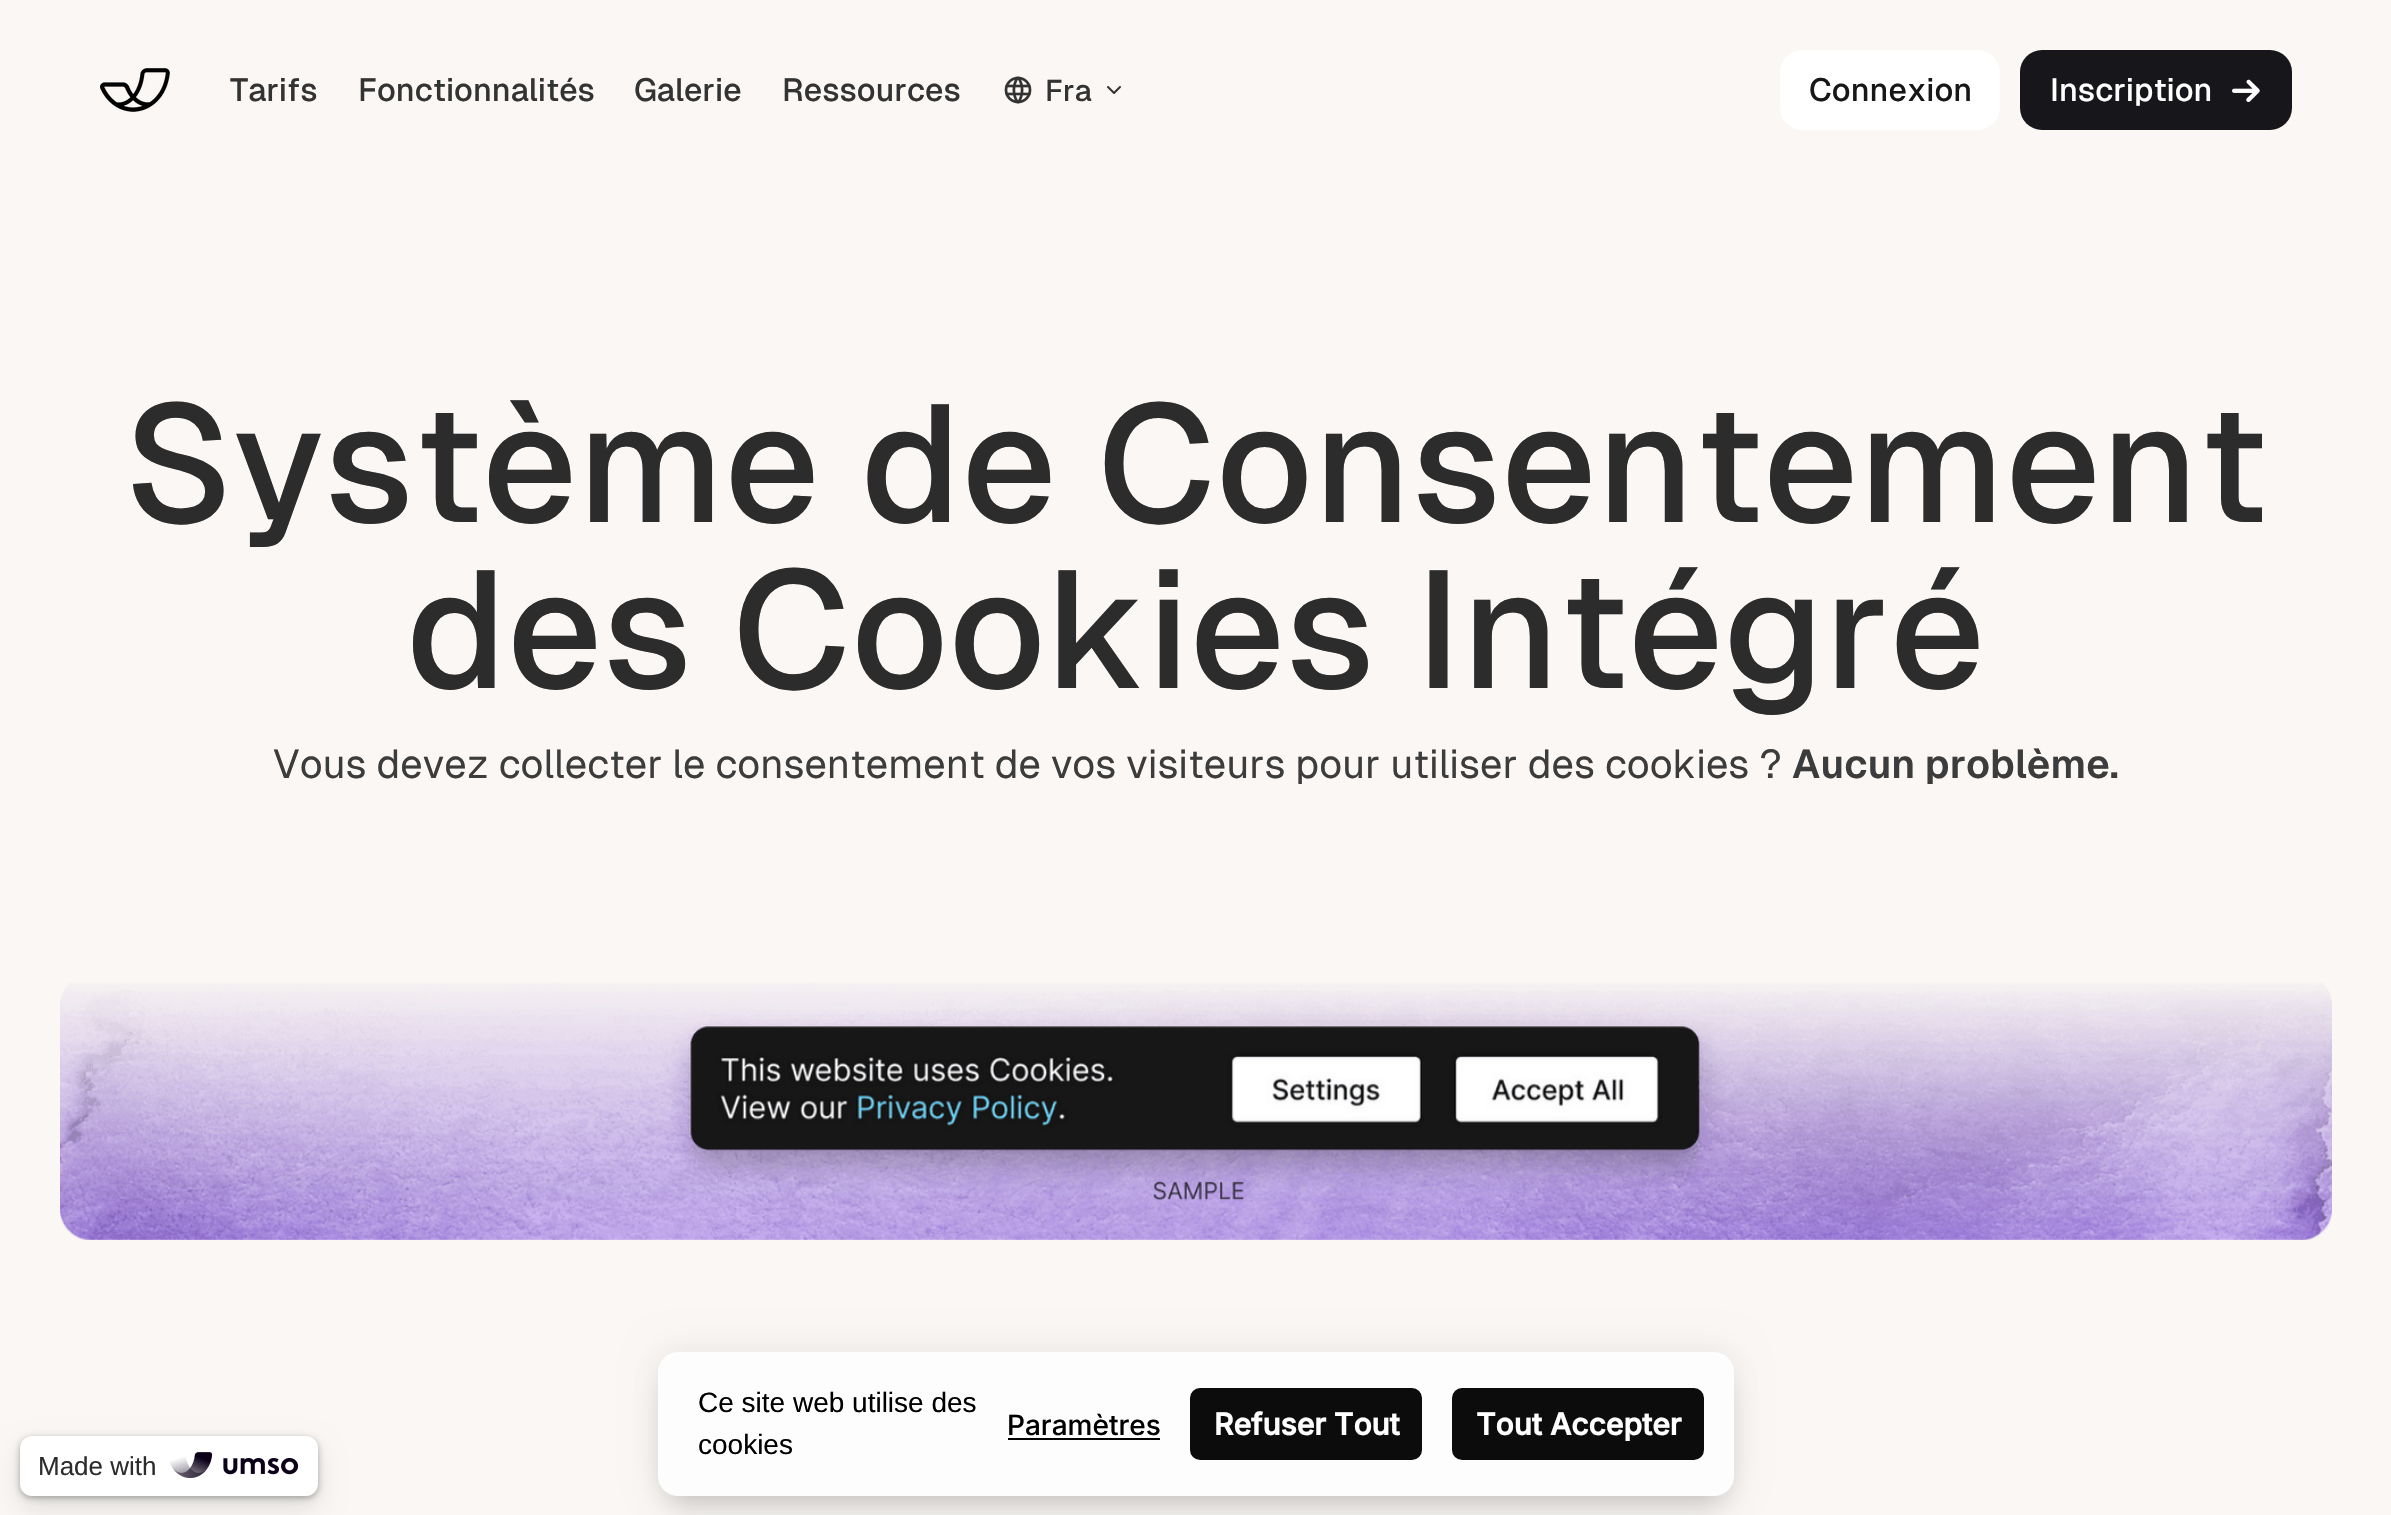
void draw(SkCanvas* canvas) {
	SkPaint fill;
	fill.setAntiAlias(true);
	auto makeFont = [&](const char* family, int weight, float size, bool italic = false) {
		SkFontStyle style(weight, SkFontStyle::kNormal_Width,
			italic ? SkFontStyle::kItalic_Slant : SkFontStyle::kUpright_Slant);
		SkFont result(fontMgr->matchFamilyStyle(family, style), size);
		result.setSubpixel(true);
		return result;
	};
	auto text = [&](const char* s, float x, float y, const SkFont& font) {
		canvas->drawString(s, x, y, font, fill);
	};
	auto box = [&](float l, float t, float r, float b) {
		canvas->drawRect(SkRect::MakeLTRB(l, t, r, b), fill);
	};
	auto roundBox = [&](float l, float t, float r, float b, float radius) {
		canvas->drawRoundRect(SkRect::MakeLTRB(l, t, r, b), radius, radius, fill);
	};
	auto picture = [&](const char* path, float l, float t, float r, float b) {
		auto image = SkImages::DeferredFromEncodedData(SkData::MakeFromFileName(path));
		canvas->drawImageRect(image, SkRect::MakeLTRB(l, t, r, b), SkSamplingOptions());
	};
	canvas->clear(0xFFFAF7F4);
	picture("image0.png", 100, 68, 170, 112);
	picture("image1.png", 1004, 76, 1032, 104);
	fill.setStyle(SkPaint::kStroke_Style);
	fill.setStrokeWidth(2);
	fill.setStrokeCap(SkPaint::kRound_Cap);
	fill.setStrokeJoin(SkPaint::kRound_Join);
	fill.setColor(0xFF333333);
	canvas->drawPath(SkPathBuilder().moveTo(1108, 87).lineTo(1114, 93).lineTo(1120, 87).detach(), fill);
	fill.setStyle(SkPaint::kFill_Style);
	fill.setColor(0xFFFFFFFF);
	roundBox(1780, 50, 2000, 130, 22);
	fill.setColor(0xFF17161A);
	roundBox(2020, 50, 2292, 130, 22);
	picture("image2.png", 2232, 79, 2260, 102);
	picture("image3.png", 60, 982, 2332, 1240);
	fill.setColor(0x0F000000);
	fill.setMaskFilter(SkMaskFilter::MakeBlur(kNormal_SkBlurStyle, 17));
	canvas->drawRoundRect(SkRect::MakeLTRB(658, 1348, 1734, 1492), 20, 20, fill);
	fill.setMaskFilter(nullptr);
	fill.setColor(0x33000000);
	fill.setMaskFilter(SkMaskFilter::MakeBlur(kNormal_SkBlurStyle, 15));
	canvas->drawRoundRect(SkRect::MakeLTRB(668, 1380, 1724, 1504), 10, 10, fill);
	fill.setMaskFilter(nullptr);
	fill.setColor(0xFFFDFDFD);
	roundBox(658, 1352, 1734, 1496, 20);
	fill.setColor(0xFF000000);
	box(1008, 1438, 1160, 1440);
	fill.setColor(0xFF0C0C0C);
	canvas->drawRoundRect(SkRect::MakeLTRB(1191, 1389, 1421, 1459), 9, 9, fill);
	fill.setStyle(SkPaint::kStroke_Style);
	fill.setStrokeCap(SkPaint::kButt_Cap);
	fill.setStrokeJoin(SkPaint::kMiter_Join);
	canvas->drawRoundRect(SkRect::MakeLTRB(1191, 1389, 1421, 1459), 9, 9, fill);
	fill.setStyle(SkPaint::kFill_Style);
	canvas->drawRoundRect(SkRect::MakeLTRB(1453, 1389, 1703, 1459), 9, 9, fill);
	fill.setStyle(SkPaint::kStroke_Style);
	canvas->drawRoundRect(SkRect::MakeLTRB(1453, 1389, 1703, 1459), 9, 9, fill);
	fill.setStyle(SkPaint::kFill_Style);
	fill.setColor(0x1A000000);
	fill.setMaskFilter(SkMaskFilter::MakeBlur(kNormal_SkBlurStyle, 13));
	canvas->drawRoundRect(SkRect::MakeLTRB(20, 1448, 318, 1508), 12, 12, fill);
	fill.setMaskFilter(nullptr);
	fill.setColor(0x4D000000);
	fill.setMaskFilter(SkMaskFilter::MakeBlur(kNormal_SkBlurStyle, 3));
	canvas->drawRoundRect(SkRect::MakeLTRB(20, 1438, 318, 1498), 12, 12, fill);
	fill.setMaskFilter(nullptr);
	fill.setColor(0xFFFFFFFF);
	roundBox(20, 1436, 318, 1496, 12);
	picture("image4.png", 170, 1452, 299, 1479);
	auto font1 = makeFont("Geist", 500, 32);
	fill.setColor(0xFF333333);
	text("Tarifs", 230, 101, font1);
	text("Fonctionnalités", 358, 101, font1);
	text("Galerie", 634, 101, font1);
	text("Ressources", 782, 101, font1);
	auto font2 = makeFont("Geist", 500, 30);
	text("Fra", 1045, 101, font2);
	fill.setColor(0xFF171717);
	text("Connexion", 1809, 101, font1);
	fill.setColor(0xFFFFFFFF);
	text("Inscription", 2050, 101, font1);
	auto font3 = makeFont("Geist", 500, 166);
	fill.setColor(0xFF2C2C2C);
	text("Système de Consentement", 124, 522, font3);
	text("des Cookies Intégré", 406, 688, font3);
	auto font4 = makeFont("Geist", 400, 40);
	fill.setColor(0xFF3C3C3C);
	text("Vous devez collecter le consentement de vos visiteurs pour utiliser des cookies ?", 273, 778, font4);
	auto font5 = makeFont("Geist", 600, 40);
	text("Aucun problème.", 1792, 778, font5);
	auto font6 = makeFont("Liberation Sans", 400, 28);
	fill.setColor(0xFF000000);
	text("Ce site web utilise des", 698, 1412, font6);
	text("cookies", 698, 1454, font6);
	auto font7 = makeFont("Inter", 500, 28);
	text("Paramètres", 1007, 1435, font7);
	auto font8 = makeFont("Inter", 700, 30);
	fill.setColor(0xFFFFFFFF);
	text("Refuser Tout", 1214, 1435, font8);
	text("Tout Accepter", 1476, 1435, font8);
	auto font9 = makeFont("Liberation Sans", 400, 26);
	fill.setColor(0xFF2C2C2C);
	text("Made with", 38, 1475, font9);
}
